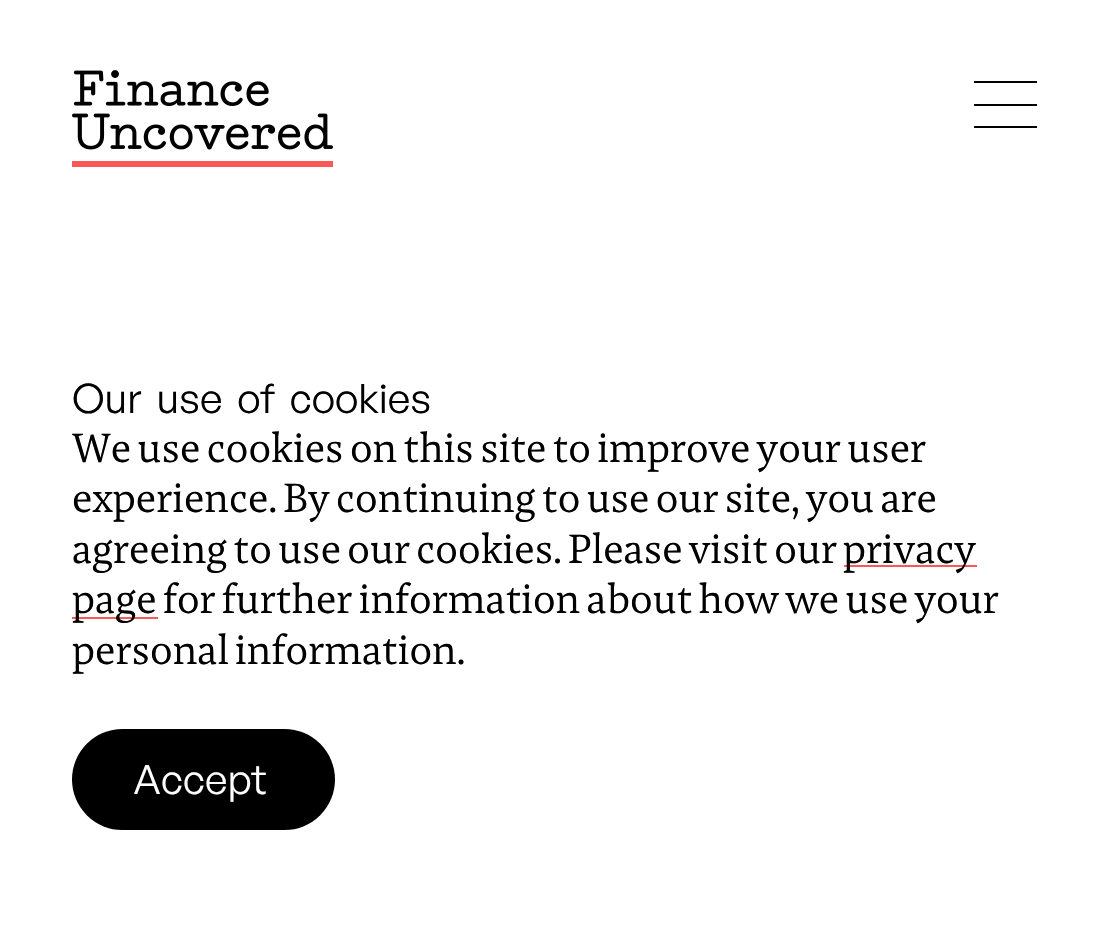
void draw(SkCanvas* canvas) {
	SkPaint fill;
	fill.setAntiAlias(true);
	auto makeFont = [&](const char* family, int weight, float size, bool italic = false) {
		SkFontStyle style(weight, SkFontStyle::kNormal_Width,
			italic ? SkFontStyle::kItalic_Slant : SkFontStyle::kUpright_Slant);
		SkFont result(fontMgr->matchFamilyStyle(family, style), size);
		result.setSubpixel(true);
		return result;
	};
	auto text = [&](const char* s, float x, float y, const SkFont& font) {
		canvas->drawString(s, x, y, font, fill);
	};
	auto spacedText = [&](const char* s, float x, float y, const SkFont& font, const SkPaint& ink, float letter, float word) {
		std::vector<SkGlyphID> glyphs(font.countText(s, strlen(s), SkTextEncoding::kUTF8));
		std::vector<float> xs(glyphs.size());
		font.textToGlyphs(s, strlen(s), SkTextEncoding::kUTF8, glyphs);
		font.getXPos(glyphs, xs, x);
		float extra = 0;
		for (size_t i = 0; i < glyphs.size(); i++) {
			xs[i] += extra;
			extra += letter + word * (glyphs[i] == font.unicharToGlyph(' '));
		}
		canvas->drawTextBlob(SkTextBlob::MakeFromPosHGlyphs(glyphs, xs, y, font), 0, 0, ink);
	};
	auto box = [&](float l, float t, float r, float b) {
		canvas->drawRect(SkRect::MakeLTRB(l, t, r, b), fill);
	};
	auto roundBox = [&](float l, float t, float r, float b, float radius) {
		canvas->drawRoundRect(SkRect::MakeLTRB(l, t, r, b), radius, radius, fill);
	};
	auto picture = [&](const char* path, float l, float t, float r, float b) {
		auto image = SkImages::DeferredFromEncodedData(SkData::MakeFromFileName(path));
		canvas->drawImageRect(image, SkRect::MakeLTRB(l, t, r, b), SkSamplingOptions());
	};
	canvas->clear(0xFFFFFFFF);
	picture("image0.png", 72, 70, 333, 167);
	fill.setColor(0xFF000000);
	box(974, 81, 1037, 83);
	box(974, 104, 1037, 106);
	box(974, 126, 1037, 128);
	fill.setColor(0xFFFC5858);
	box(844, 565, 977, 567);
	box(72, 617, 158, 619);
	fill.setColor(0xFF000000);
	roundBox(72, 729, 335, 830, 50.5f);
	auto font1 = makeFont("General Sans", 400, 40.5f);
	spacedText("Our use of cookies", 72, 413, font1, fill, 0, 6.5f);
	auto font2 = makeFont("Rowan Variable", 400, 40.5f);
	text("We use cookies on this site to improve your user", 72, 462, font2);
	text("experience. By continuing to use our site, you are", 72, 512, font2);
	text("agreeing to use our cookies. Please visit our", 72, 563, font2);
	text("privacy", 843, 563, font2);
	text("page for further information about how we use your", 72, 613, font2);
	text("personal information.", 72, 664, font2);
	fill.setColor(0xFFFFFFFF);
	text("Accept", 133, 794, font1);
}
